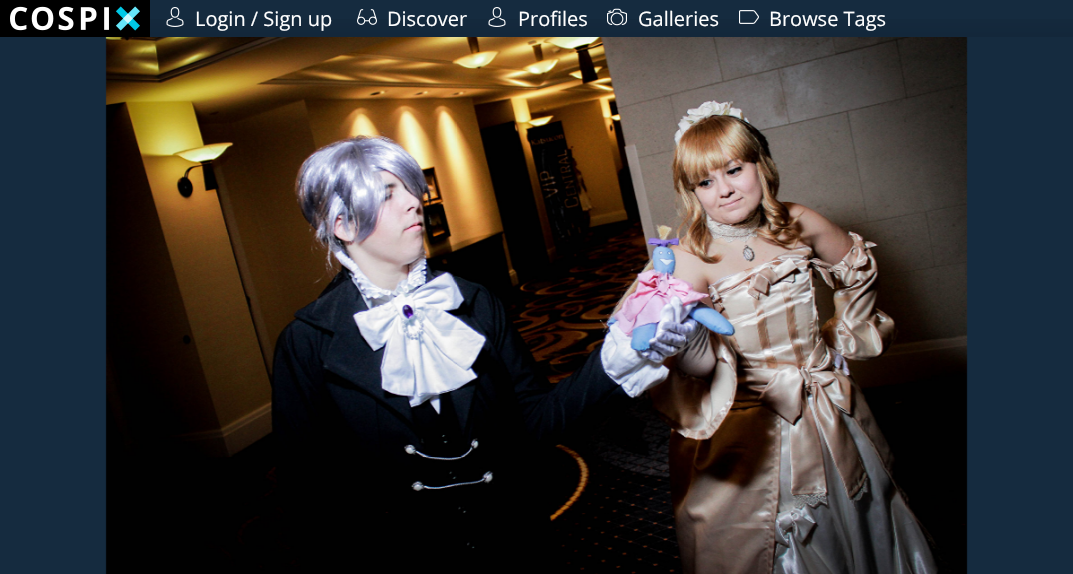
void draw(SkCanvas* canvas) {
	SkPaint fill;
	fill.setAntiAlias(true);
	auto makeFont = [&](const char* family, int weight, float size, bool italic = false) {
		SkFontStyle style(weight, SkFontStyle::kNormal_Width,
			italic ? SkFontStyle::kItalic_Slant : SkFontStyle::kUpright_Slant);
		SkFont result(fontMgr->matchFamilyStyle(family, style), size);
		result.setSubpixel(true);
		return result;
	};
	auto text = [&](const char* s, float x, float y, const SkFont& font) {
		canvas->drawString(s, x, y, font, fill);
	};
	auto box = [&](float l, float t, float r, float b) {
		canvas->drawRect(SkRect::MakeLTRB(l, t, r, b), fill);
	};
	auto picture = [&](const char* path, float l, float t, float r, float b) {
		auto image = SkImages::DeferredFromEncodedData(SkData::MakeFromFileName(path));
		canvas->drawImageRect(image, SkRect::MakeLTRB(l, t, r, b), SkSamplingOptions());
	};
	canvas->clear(0xFF152B3F);
	{
		const SkColor colors[] = {0xFF13273A, 0xFF152B3F};
		const float stops[] = {0, 1};
		const SkPoint ends[] = {{537, 37}, {537, 0}};
		fill.setShader(SkGradientShader::MakeLinear(ends, colors, stops, 2, SkTileMode::kClamp));
		fill.setAlpha(255);
	}
	box(150, 19, 1073, 37);
	fill.setShader(nullptr);
	fill.setColor(0xFF000000);
	box(0, 0, 150, 37);
	picture("image0.png", 10, 6, 140, 31);
	picture("image1.png", 166, 7, 184, 27);
	picture("image2.png", 357, 9, 377, 25);
	picture("image1.png", 488, 7, 506, 27);
	picture("image3.png", 607, 8, 627, 26);
	picture("image4.png", 739, 10, 759, 24);
	picture("image5.png", 105, 37, 968, 574);
	auto font1 = makeFont("Open Sans", 400, 20);
	fill.setColor(0xFFFFFFFF);
	text("Login / Sign up", 195, 26, font1);
	text("Discover", 387, 26, font1);
	text("Profiles", 518, 26, font1);
	text("Galleries", 638, 26, font1);
	text("Browse Tags", 769, 26, font1);
}
